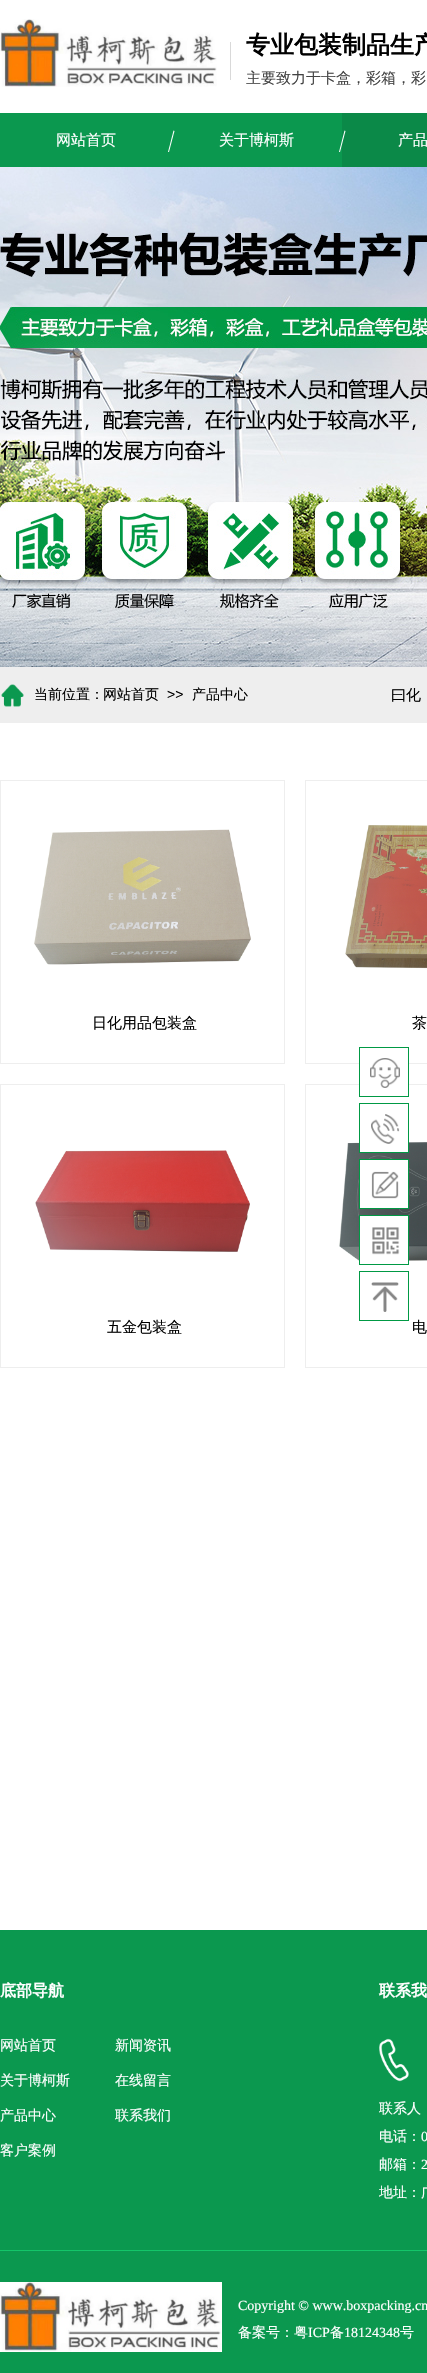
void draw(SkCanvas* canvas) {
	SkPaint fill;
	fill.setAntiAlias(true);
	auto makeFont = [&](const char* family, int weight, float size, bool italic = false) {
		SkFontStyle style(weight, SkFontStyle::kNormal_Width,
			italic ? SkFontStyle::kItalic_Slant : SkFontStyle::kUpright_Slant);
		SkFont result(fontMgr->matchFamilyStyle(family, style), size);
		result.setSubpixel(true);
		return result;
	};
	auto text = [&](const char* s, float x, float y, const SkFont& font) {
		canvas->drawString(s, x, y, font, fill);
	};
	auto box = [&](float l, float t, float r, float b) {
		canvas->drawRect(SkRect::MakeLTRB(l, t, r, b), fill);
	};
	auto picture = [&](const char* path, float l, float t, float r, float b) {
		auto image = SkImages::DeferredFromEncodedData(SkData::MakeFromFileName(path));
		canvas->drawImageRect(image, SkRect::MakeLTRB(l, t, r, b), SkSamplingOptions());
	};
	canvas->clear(0xFFFFFFFF);
	picture("image0.png", 0, 19, 217, 87);
	fill.setColor(0xFFD9D9D9);
	box(230, 42, 231, 80);
	fill.setColor(0xFF0B984F);
	box(0, 113, 342, 167);
	fill.setColor(0xFFFFFFFF);
	canvas->drawPath(SkPathBuilder().moveTo(173.5f, 130.5f).lineTo(174.5f, 131).lineTo(169, 152).lineTo(168, 152).close().detach(), fill);
	fill.setColor(0xFF0B8948);
	box(342, 113, 427, 167);
	fill.setColor(0xFFFFFFFF);
	canvas->drawPath(SkPathBuilder().moveTo(344.5f, 130.5f).lineTo(345.5f, 131).lineTo(340, 152).lineTo(339, 152).close().detach(), fill);
	picture("image1.png", 0, 167, 427, 667);
	fill.setColor(0xFFEEEEEE);
	box(0, 667, 427, 723);
	picture("image2.png", 1, 684, 24, 707);
	fill.setStyle(SkPaint::kStroke_Style);
	fill.setStrokeWidth(1);
	canvas->drawRect(SkRect::MakeLTRB(0.5f, 780.5f, 284.5f, 1063.5f), fill);
	picture("image3.png", 34, 829, 251, 965);
	canvas->drawRect(SkRect::MakeLTRB(305.5f, 780.5f, 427.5f, 1063.5f), fill);
	picture("image4.png", 345, 825, 427, 969);
	canvas->drawRect(SkRect::MakeLTRB(0.5f, 1084.5f, 284.5f, 1367.5f), fill);
	picture("image5.png", 35, 1150, 250, 1252);
	canvas->drawRect(SkRect::MakeLTRB(305.5f, 1084.5f, 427.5f, 1367.5f), fill);
	picture("image6.png", 339, 1142, 427, 1261);
	fill.setStyle(SkPaint::kFill_Style);
	fill.setColor(0xFF0B984F);
	box(0, 1930, 427, 2373);
	picture("image7.png", 379, 2038, 409, 2082);
	fill.setColor(0xFF14C569);
	box(0, 2250, 427, 2251);
	picture("image8.png", 0, 2282, 222, 2352);
	fill.setColor(0xFFFFFFFF);
	box(360, 1063, 408, 1085);
	fill.setStyle(SkPaint::kStroke_Style);
	fill.setColor(0xFF009944);
	canvas->drawRect(SkRect::MakeLTRB(359.5f, 1047.5f, 408.5f, 1096.5f), fill);
	picture("image9.png", 370, 1058, 400, 1088);
	fill.setStyle(SkPaint::kFill_Style);
	fill.setColor(0xFFFFFFFF);
	box(360, 1142, 408, 1152);
	fill.setStyle(SkPaint::kStroke_Style);
	fill.setColor(0xFF009944);
	canvas->drawRect(SkRect::MakeLTRB(359.5f, 1103.5f, 408.5f, 1152.5f), fill);
	picture("image10.png", 371, 1114, 400, 1144);
	fill.setStyle(SkPaint::kFill_Style);
	fill.setColor(0xFFFFFFFF);
	canvas->drawRect(SkRect::MakeLTRB(359.5f, 1159.5f, 408.5f, 1208.5f), fill);
	fill.setStyle(SkPaint::kStroke_Style);
	fill.setColor(0xFF009944);
	canvas->drawRect(SkRect::MakeLTRB(359.5f, 1159.5f, 408.5f, 1208.5f), fill);
	picture("image11.png", 371, 1171, 399, 1199);
	fill.setStyle(SkPaint::kFill_Style);
	fill.setColor(0xFFFFFFFF);
	box(360, 1216, 408, 1261);
	fill.setStyle(SkPaint::kStroke_Style);
	fill.setColor(0xFF009944);
	canvas->drawRect(SkRect::MakeLTRB(359.5f, 1215.5f, 408.5f, 1264.5f), fill);
	picture("image12.png", 372, 1227, 400, 1255);
	canvas->drawRect(SkRect::MakeLTRB(359.5f, 1271.5f, 408.5f, 1320.5f), fill);
	picture("image13.png", 371, 1282, 399, 1312);
	auto font1 = makeFont("WenQuanYi Zen Hei", 700, 24);
	fill.setStyle(SkPaint::kFill_Style);
	fill.setColor(0xFF000000);
	text("专业包装制品生产", 246, 53, font1);
	auto font2 = makeFont("WenQuanYi Zen Hei", 500, 15);
	fill.setColor(0xFF434343);
	text("主要致力于卡盒，彩箱，彩", 246, 83, font2);
	fill.setColor(0xFFFFFFFF);
	text("网站首页", 56, 145, font2);
	text("关于博柯斯", 219, 145, font2);
	text("产品", 398, 145, font2);
	auto font3 = makeFont("WenQuanYi Zen Hei", 500, 14);
	fill.setColor(0xFF000000);
	text("当前位置：", 34, 699, font3);
	text("网站首页", 103, 699, font3);
	auto font4 = makeFont("Liberation Sans", 400, 14);
	text(">>", 167, 699, font4);
	text("产品中心", 192, 699, font3);
	text("曰化", 391, 700, font2);
	text("日化用品包装盒", 92, 1028, font2);
	text("茶", 412, 1028, font2);
	text("五金包装盒", 107, 1332, font2);
	text("电", 412, 1332, font2);
	auto font5 = makeFont("WenQuanYi Zen Hei", 700, 16);
	fill.setColor(0xFFFFFFFF);
	text("底部导航", 0, 1996, font5);
	text("联系我", 379, 1996, font5);
	text("网站首页", 0, 2050, font3);
	text("关于博柯斯", 0, 2085, font3);
	text("产品中心", 0, 2120, font3);
	text("客户案例", 0, 2155, font3);
	text("新闻资讯", 115, 2050, font3);
	text("在线留言", 115, 2085, font3);
	text("联系我们", 115, 2120, font3);
	text("联系人", 379, 2113, font3);
	text("电话：", 379, 2141, font3);
	auto font6 = makeFont("Liberation Serif", 400, 14);
	text("0", 421, 2141, font6);
	text("邮箱：", 379, 2169, font3);
	text("2", 421, 2169, font6);
	text("地址：广", 379, 2197, font3);
	text("Copyright © www.boxpacking.cn", 238, 2310, font6);
	text("备案号：粤", 238, 2337, font3);
	text("ICP", 308, 2337, font6);
	text("备", 330, 2337, font3);
	text("18124348", 344, 2337, font6);
	text("号", 400, 2337, font3);
}
